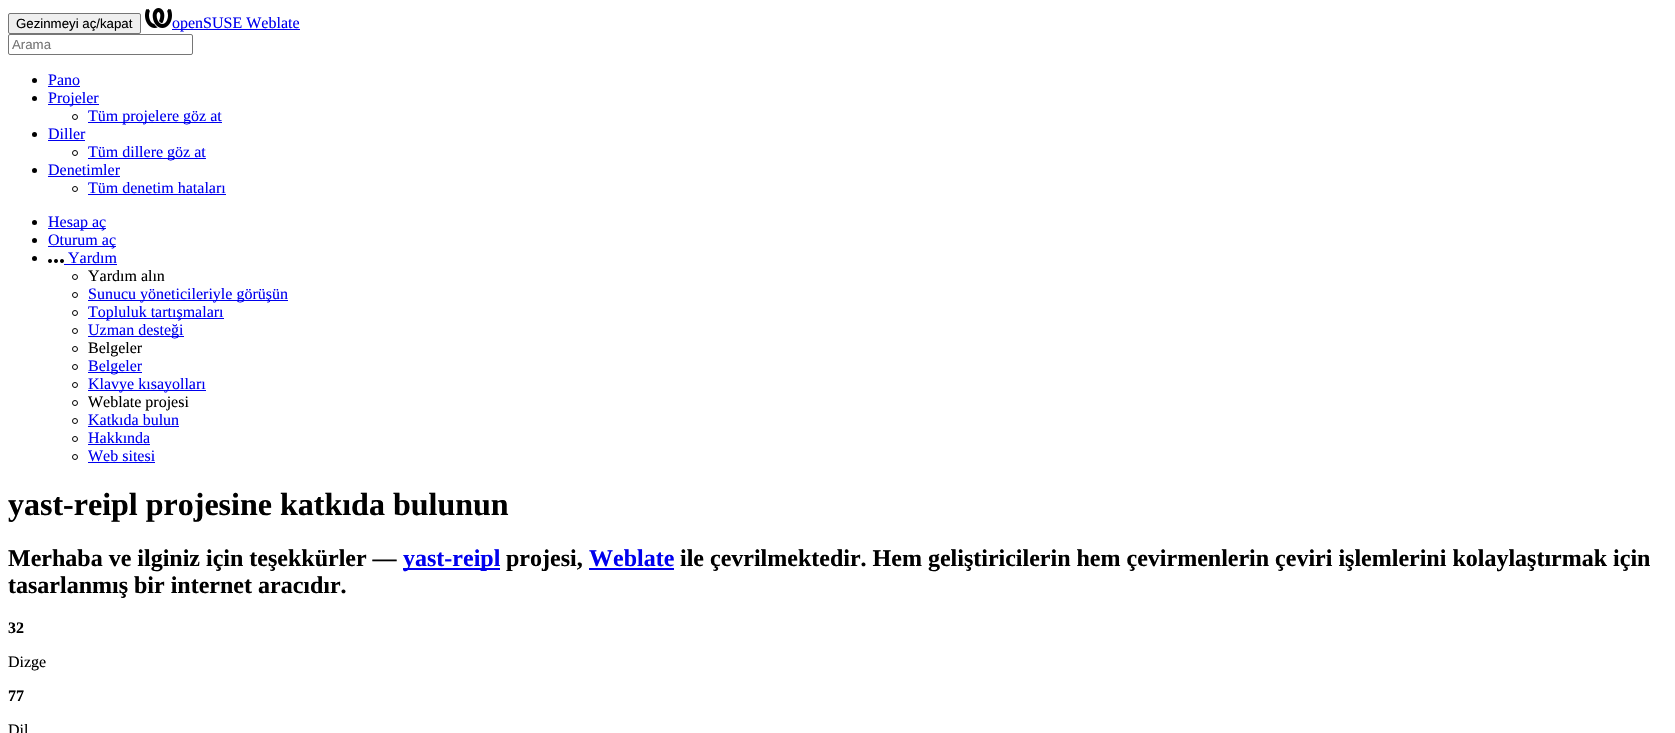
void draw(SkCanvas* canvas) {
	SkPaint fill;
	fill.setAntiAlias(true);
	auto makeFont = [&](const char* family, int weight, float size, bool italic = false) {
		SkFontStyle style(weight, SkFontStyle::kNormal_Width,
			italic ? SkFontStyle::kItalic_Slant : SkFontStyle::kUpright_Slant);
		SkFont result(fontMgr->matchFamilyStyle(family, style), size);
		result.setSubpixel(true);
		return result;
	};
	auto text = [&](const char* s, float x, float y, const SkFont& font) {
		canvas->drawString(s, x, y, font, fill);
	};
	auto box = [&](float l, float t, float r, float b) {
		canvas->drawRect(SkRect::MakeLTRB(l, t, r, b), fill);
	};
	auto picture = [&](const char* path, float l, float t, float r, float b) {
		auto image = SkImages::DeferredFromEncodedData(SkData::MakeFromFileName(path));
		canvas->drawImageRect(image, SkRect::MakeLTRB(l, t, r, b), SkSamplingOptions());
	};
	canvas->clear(0xFFFFFFFF);
	fill.setColor(0xFFEFEFEF);
	canvas->drawRoundRect(SkRect::MakeLTRB(8.5f, 13.5f, 140.5f, 33.5f), 1.5f, 1.5f, fill);
	fill.setStyle(SkPaint::kStroke_Style);
	fill.setStrokeWidth(1);
	fill.setColor(0xFF767676);
	canvas->drawRoundRect(SkRect::MakeLTRB(8.5f, 13.5f, 140.5f, 33.5f), 1.5f, 1.5f, fill);
	picture("image0.png", 145, 8, 172, 28);
	fill.setStyle(SkPaint::kFill_Style);
	fill.setColor(0xFF0000EE);
	box(172, 29, 300, 30);
	fill.setStyle(SkPaint::kStroke_Style);
	fill.setColor(0xFF767676);
	canvas->drawRoundRect(SkRect::MakeLTRB(8.5f, 34.5f, 192.5f, 54.5f), 1.5f, 1.5f, fill);
	fill.setStyle(SkPaint::kFill_Style);
	fill.setColor(0xFF000000);
	canvas->drawCircle(34.5f, 80.5f, 2.5f, fill);
	fill.setColor(0xFF0000EE);
	box(48, 86, 80, 87);
	fill.setColor(0xFF000000);
	canvas->drawCircle(34.5f, 98.5f, 2.5f, fill);
	fill.setColor(0xFF0000EE);
	box(48, 104, 99, 105);
	fill.setStyle(SkPaint::kStroke_Style);
	fill.setColor(0xFF000000);
	canvas->drawCircle(75, 117, 2.5f, fill);
	fill.setStyle(SkPaint::kFill_Style);
	fill.setColor(0xFF0000EE);
	box(88, 122, 222, 123);
	fill.setColor(0xFF000000);
	canvas->drawCircle(34.5f, 134.5f, 2.5f, fill);
	fill.setColor(0xFF0000EE);
	box(48, 140, 85, 141);
	fill.setStyle(SkPaint::kStroke_Style);
	fill.setColor(0xFF000000);
	canvas->drawCircle(75, 153, 2.5f, fill);
	fill.setStyle(SkPaint::kFill_Style);
	fill.setColor(0xFF0000EE);
	box(88, 158, 206, 159);
	fill.setColor(0xFF000000);
	canvas->drawCircle(34.5f, 170.5f, 2.5f, fill);
	fill.setColor(0xFF0000EE);
	box(48, 176, 120, 177);
	fill.setStyle(SkPaint::kStroke_Style);
	fill.setColor(0xFF000000);
	canvas->drawCircle(75, 189, 2.5f, fill);
	fill.setStyle(SkPaint::kFill_Style);
	fill.setColor(0xFF0000EE);
	box(88, 194, 226, 195);
	fill.setColor(0xFF000000);
	canvas->drawCircle(34.5f, 222.5f, 2.5f, fill);
	fill.setColor(0xFF0000EE);
	box(48, 228, 106, 229);
	fill.setColor(0xFF000000);
	canvas->drawCircle(34.5f, 240.5f, 2.5f, fill);
	fill.setColor(0xFF0000EE);
	box(48, 246, 116, 247);
	fill.setColor(0xFF000000);
	canvas->drawCircle(34.5f, 258.5f, 2.5f, fill);
	picture("image1.png", 48, 259, 64, 263);
	fill.setColor(0xFF0000EE);
	box(64, 264, 117, 265);
	fill.setStyle(SkPaint::kStroke_Style);
	fill.setColor(0xFF000000);
	canvas->drawCircle(75, 277, 2.5f, fill);
	canvas->drawCircle(75, 295, 2.5f, fill);
	fill.setStyle(SkPaint::kFill_Style);
	fill.setColor(0xFF0000EE);
	box(88, 300, 288, 301);
	fill.setStyle(SkPaint::kStroke_Style);
	fill.setColor(0xFF000000);
	canvas->drawCircle(75, 313, 2.5f, fill);
	fill.setStyle(SkPaint::kFill_Style);
	fill.setColor(0xFF0000EE);
	box(88, 318, 224, 319);
	fill.setStyle(SkPaint::kStroke_Style);
	fill.setColor(0xFF000000);
	canvas->drawCircle(75, 331, 2.5f, fill);
	fill.setStyle(SkPaint::kFill_Style);
	fill.setColor(0xFF0000EE);
	box(88, 336, 184, 337);
	fill.setStyle(SkPaint::kStroke_Style);
	fill.setColor(0xFF000000);
	canvas->drawCircle(75, 349, 2.5f, fill);
	canvas->drawCircle(75, 367, 2.5f, fill);
	fill.setStyle(SkPaint::kFill_Style);
	fill.setColor(0xFF0000EE);
	box(88, 372, 142, 373);
	fill.setStyle(SkPaint::kStroke_Style);
	fill.setColor(0xFF000000);
	canvas->drawCircle(75, 385, 2.5f, fill);
	fill.setStyle(SkPaint::kFill_Style);
	fill.setColor(0xFF0000EE);
	box(88, 390, 206, 391);
	fill.setStyle(SkPaint::kStroke_Style);
	fill.setColor(0xFF000000);
	canvas->drawCircle(75, 403, 2.5f, fill);
	canvas->drawCircle(75, 421, 2.5f, fill);
	fill.setStyle(SkPaint::kFill_Style);
	fill.setColor(0xFF0000EE);
	box(88, 426, 179, 427);
	fill.setStyle(SkPaint::kStroke_Style);
	fill.setColor(0xFF000000);
	canvas->drawCircle(75, 439, 2.5f, fill);
	fill.setStyle(SkPaint::kFill_Style);
	fill.setColor(0xFF0000EE);
	box(88, 444, 150, 445);
	fill.setStyle(SkPaint::kStroke_Style);
	fill.setColor(0xFF000000);
	canvas->drawCircle(75, 457, 2.5f, fill);
	fill.setStyle(SkPaint::kFill_Style);
	fill.setColor(0xFF0000EE);
	box(88, 462, 155, 463);
	box(403, 568, 500, 570);
	box(589, 568, 674, 570);
	auto font1 = makeFont("Liberation Sans", 400, 13.25f);
	fill.setColor(0xFF000000);
	text("Gezinmeyi aç/kapat", 16, 28, font1);
	auto font2 = makeFont("Liberation Serif", 400, 16);
	fill.setColor(0xFF0000EE);
	text("openSUSE Weblate", 172, 28, font2);
	fill.setColor(0xFF757575);
	text("Arama", 12, 49, font1);
	fill.setColor(0xFF0000EE);
	text("Pano", 48, 85, font2);
	text("Projeler", 48, 103, font2);
	text("Tüm projelere göz at", 88, 121, font2);
	text("Diller", 48, 139, font2);
	text("Tüm dillere göz at", 88, 157, font2);
	text("Denetimler", 48, 175, font2);
	text("Tüm denetim hataları", 88, 193, font2);
	text("Hesap aç", 48, 227, font2);
	text("Oturum aç", 48, 245, font2);
	text("Yardım", 68, 263, font2);
	fill.setColor(0xFF000000);
	text("Yardım alın", 88, 281, font2);
	fill.setColor(0xFF0000EE);
	text("Sunucu yöneticileriyle görüşün", 88, 299, font2);
	text("Topluluk tartışmaları", 88, 317, font2);
	text("Uzman desteği", 88, 335, font2);
	fill.setColor(0xFF000000);
	text("Belgeler", 88, 353, font2);
	fill.setColor(0xFF0000EE);
	text("Belgeler", 88, 371, font2);
	text("Klavye kısayolları", 88, 389, font2);
	fill.setColor(0xFF000000);
	text("Weblate projesi", 88, 407, font2);
	fill.setColor(0xFF0000EE);
	text("Katkıda bulun", 88, 425, font2);
	text("Hakkında", 88, 443, font2);
	text("Web sitesi", 88, 461, font2);
	auto font3 = makeFont("Liberation Serif", 700, 32);
	fill.setColor(0xFF000000);
	text("yast-reipl projesine katkıda bulunun", 8, 515, font3);
	auto font4 = makeFont("Liberation Serif", 700, 24);
	text("Merhaba ve ilginiz için teşekkürler —", 8, 566, font4);
	fill.setColor(0xFF0000EE);
	text("yast-reipl", 403, 566, font4);
	fill.setColor(0xFF000000);
	text("projesi,", 506, 566, font4);
	fill.setColor(0xFF0000EE);
	text("Weblate", 589, 566, font4);
	fill.setColor(0xFF000000);
	text("ile çevrilmektedir. Hem geliştiricilerin hem çevirmenlerin çeviri işlemlerini kolaylaştırmak için", 680, 566, font4);
	text("tasarlanmış bir internet aracıdır.", 8, 593, font4);
	auto font5 = makeFont("Liberation Serif", 700, 16);
	text("32", 8, 633, font5);
	text("Dizge", 8, 667, font2);
	text("77", 8, 701, font5);
	text("Dil", 8, 735, font2);
}
